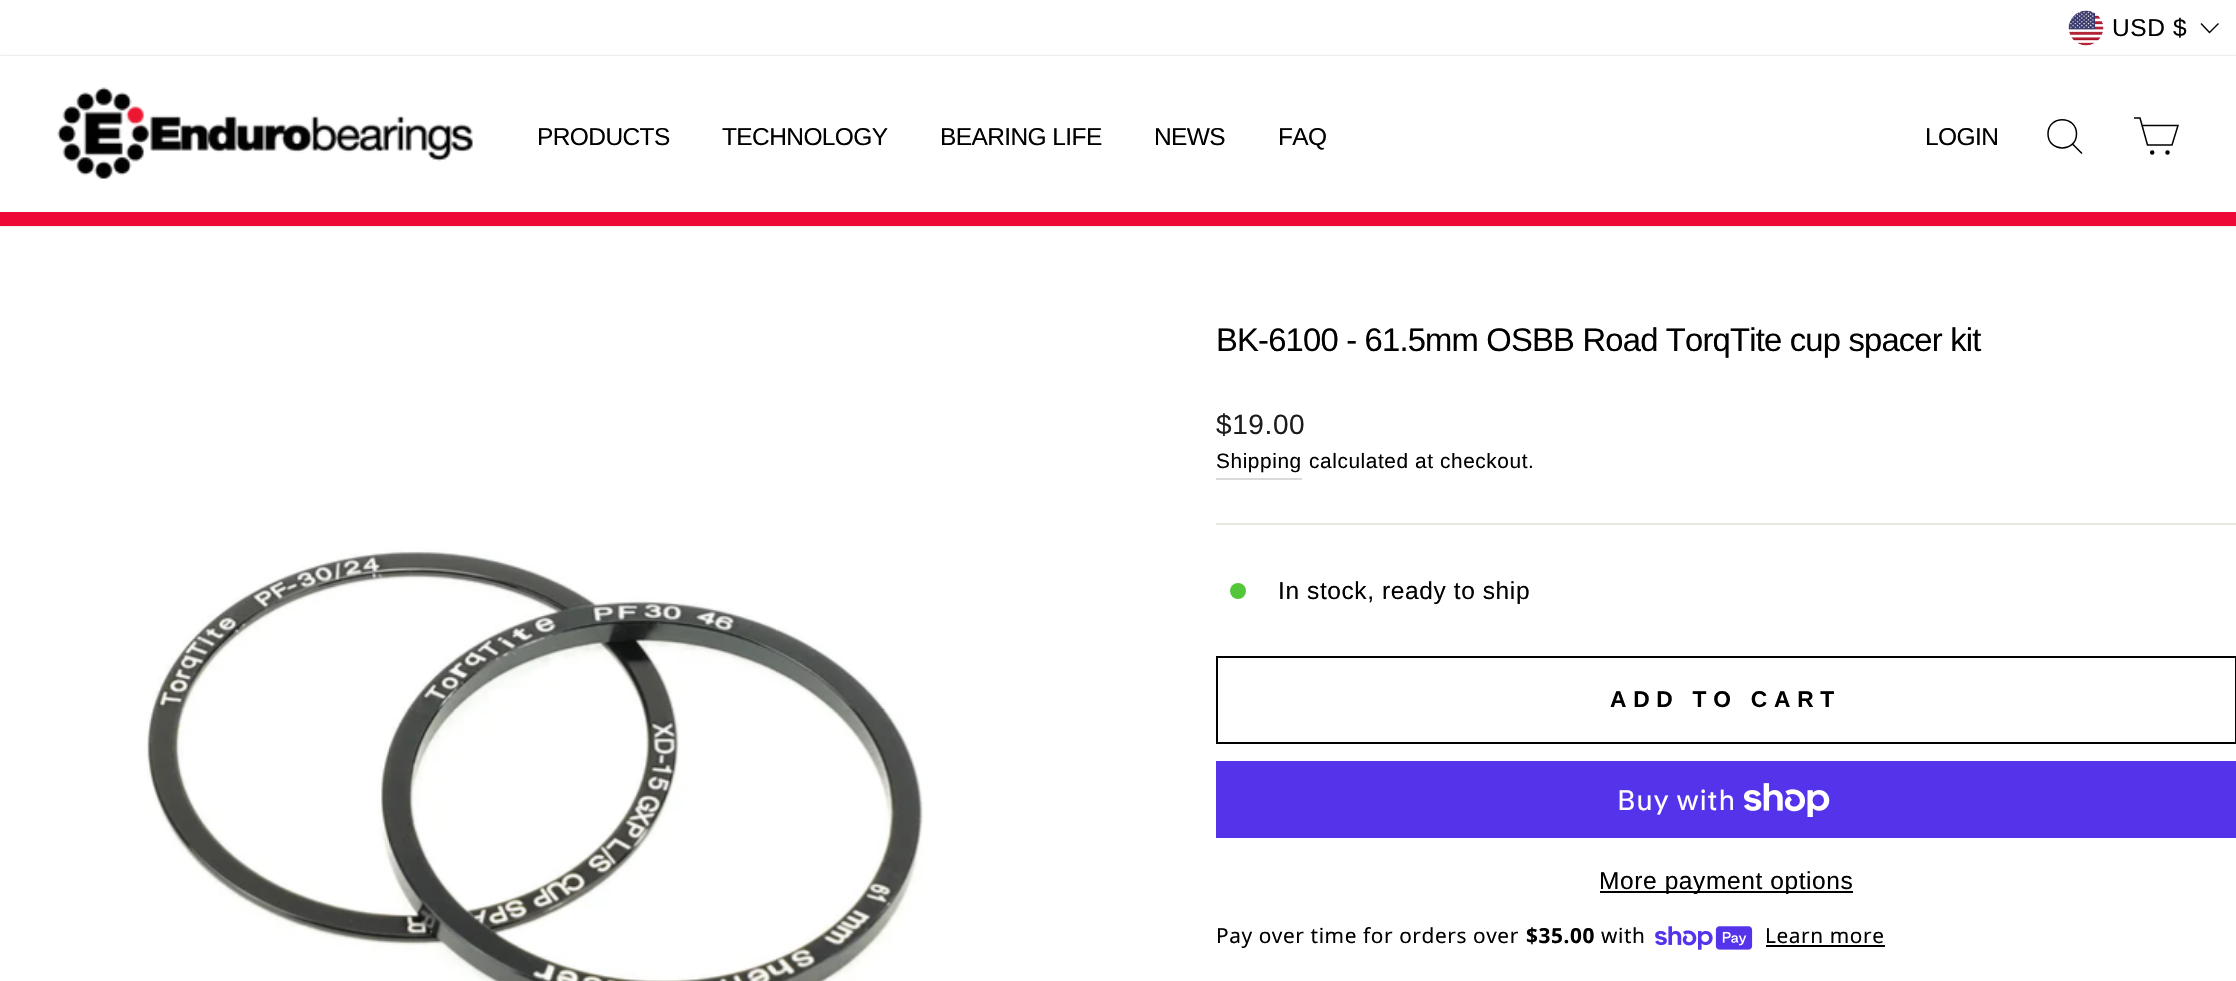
void draw(SkCanvas* canvas) {
	SkPaint fill;
	fill.setAntiAlias(true);
	auto makeFont = [&](const char* family, int weight, float size, bool italic = false) {
		SkFontStyle style(weight, SkFontStyle::kNormal_Width,
			italic ? SkFontStyle::kItalic_Slant : SkFontStyle::kUpright_Slant);
		SkFont result(fontMgr->matchFamilyStyle(family, style), size);
		result.setSubpixel(true);
		return result;
	};
	auto spacedText = [&](const char* s, float x, float y, const SkFont& font, const SkPaint& ink, float letter, float word) {
		std::vector<SkGlyphID> glyphs(font.countText(s, strlen(s), SkTextEncoding::kUTF8));
		std::vector<float> xs(glyphs.size());
		font.textToGlyphs(s, strlen(s), SkTextEncoding::kUTF8, glyphs);
		font.getXPos(glyphs, xs, x);
		float extra = 0;
		for (size_t i = 0; i < glyphs.size(); i++) {
			xs[i] += extra;
			extra += letter + word * (glyphs[i] == font.unicharToGlyph(' '));
		}
		canvas->drawTextBlob(SkTextBlob::MakeFromPosHGlyphs(glyphs, xs, y, font), 0, 0, ink);
	};
	auto box = [&](float l, float t, float r, float b) {
		canvas->drawRect(SkRect::MakeLTRB(l, t, r, b), fill);
	};
	auto picture = [&](const char* path, float l, float t, float r, float b) {
		auto image = SkImages::DeferredFromEncodedData(SkData::MakeFromFileName(path));
		canvas->drawImageRect(image, SkRect::MakeLTRB(l, t, r, b), SkSamplingOptions());
	};
	canvas->clear(0xFFFFFFFF);
	picture("image0.png", 2068, 10, 2104, 46);
	fill.setStyle(SkPaint::kStroke_Style);
	fill.setStrokeWidth(1.4f);
	fill.setColor(0xFF000000);
	canvas->drawPath(SkPathBuilder().moveTo(2201, 23.5f).lineTo(2209.5f, 32.5f).lineTo(2218.5f, 23.5f).detach(), fill);
	fill.setStyle(SkPaint::kFill_Style);
	fill.setColor(0x33000000);
	fill.setMaskFilter(SkMaskFilter::MakeBlur(kNormal_SkBlurStyle, 1));
	canvas->drawRect(SkRect::MakeLTRB(0, 56, 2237, 226), fill);
	fill.setMaskFilter(nullptr);
	fill.setColor(0xFFFFFFFF);
	box(0, 56, 2236, 212);
	fill.setColor(0xFFED0835);
	box(0, 212, 2236, 226);
	picture("image1.png", 57, 87, 473, 179);
	fill.setStyle(SkPaint::kStroke_Style);
	fill.setStrokeWidth(1.5f);
	fill.setColor(0xFF000000);
	canvas->drawPath(SkPathBuilder().moveTo(2076.5f, 134).cubicTo(2076.5f, 152.5f, 2048, 152.5f, 2048, 134).cubicTo(2048, 115, 2076.5f, 115, 2076.5f, 134).close().moveTo(2082, 153.5f).lineTo(2072.5f, 144).detach(), fill);
	canvas->drawPath(SkPathBuilder().moveTo(2142, 125.5f).lineTo(2178, 125.5f).lineTo(2172, 145).lineTo(2147.5f, 145).lineTo(2140, 118).lineTo(2134, 118).detach(), fill);
	fill.setStyle(SkPaint::kFill_Style);
	canvas->drawCircle(2152.2f, 152.6f, 1.5f, fill);
	fill.setStyle(SkPaint::kStroke_Style);
	canvas->drawCircle(2152.2f, 152.6f, 1.5f, fill);
	fill.setStyle(SkPaint::kFill_Style);
	canvas->drawCircle(2167.5f, 152.6f, 1.5f, fill);
	fill.setStyle(SkPaint::kStroke_Style);
	canvas->drawCircle(2167.5f, 152.6f, 1.5f, fill);
	picture("image2.png", 146, 548, 924, 981);
	fill.setStyle(SkPaint::kFill_Style);
	fill.setColor(0xFFD9D9D9);
	box(1216, 478, 1302, 480);
	fill.setColor(0xFFE8E8E1);
	box(1216, 523, 2236, 525);
	fill.setColor(0xFF54C63A);
	canvas->drawCircle(1238, 591, 8, fill);
	fill.setStyle(SkPaint::kStroke_Style);
	fill.setStrokeWidth(2);
	fill.setColor(0xFF000000);
	canvas->drawRect(SkRect::MakeLTRB(1217, 657, 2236, 743), fill);
	fill.setStyle(SkPaint::kFill_Style);
	fill.setColor(0xFF5433EB);
	box(1216, 761, 2236, 838);
	picture("image3.png", 1744, 783, 1830, 817);
	fill.setColor(0xFF000000);
	box(1600, 891, 1853, 893);
	picture("image4.png", 1655, 926, 1753, 950);
	box(1766, 945, 1885, 947);
	auto font1 = makeFont("Liberation Sans", 400, 24.5f);
	spacedText("USD $", 2112, 36, font1, fill, 0.6f, 0);
	spacedText("PRODUCTS", 537, 145, font1, fill, -0.6f, 0);
	spacedText("TECHNOLOGY", 722, 145, font1, fill, -0.6f, 0);
	spacedText("BEARING LIFE", 940, 145, font1, fill, -0.6f, 0);
	spacedText("NEWS", 1154, 145, font1, fill, -0.6f, 0);
	spacedText("FAQ", 1278, 145, font1, fill, -0.6f, 0);
	spacedText("LOGIN", 1925, 145, font1, fill, -0.6f, 0);
	auto font2 = makeFont("Liberation Sans", 400, 32.75f);
	spacedText("BK-6100 - 61.5mm OSBB Road TorqTite cup spacer kit", 1216, 351, font2, fill, -0.8f, 0);
	auto font3 = makeFont("Liberation Sans", 400, 28);
	fill.setColor(0xFF1C1D1D);
	spacedText("$19.00", 1216, 434, font3, fill, 0.6f, 0);
	auto font4 = makeFont("Liberation Sans", 400, 20.8f);
	fill.setColor(0xFF000000);
	spacedText("Shipping", 1216, 468, font4, fill, 0.6f, 0);
	spacedText("calculated at checkout.", 1309, 468, font4, fill, 0.6f, 0);
	spacedText("In stock, ready to ship", 1278, 599, font1, fill, 0.6f, 0);
	auto font5 = makeFont("Liberation Sans", 700, 22.75f);
	spacedText("ADD TO CART", 1610, 707, font5, fill, 6.75f, 0);
	auto font6 = makeFont("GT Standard", 400, 28);
	fill.setColor(0xFFFFFFFF);
	spacedText("Buy with", 1617, 810, font6, fill, 0.6f, 0);
	fill.setColor(0xFF000000);
	spacedText("More payment options", 1599, 889, font1, fill, 0.6f, 0);
	auto font7 = makeFont("Noto Sans", 400, 20.8f);
	spacedText("Pay over time for orders over", 1216, 943, font7, fill, 0.6f, 0);
	auto font8 = makeFont("Noto Sans", 700, 20.8f);
	spacedText("$35.00", 1526, 943, font8, fill, 0.6f, 0);
	spacedText("with", 1601, 943, font7, fill, 0.6f, 0);
	spacedText("Learn more", 1765, 943, font7, fill, 0.6f, 0);
}
